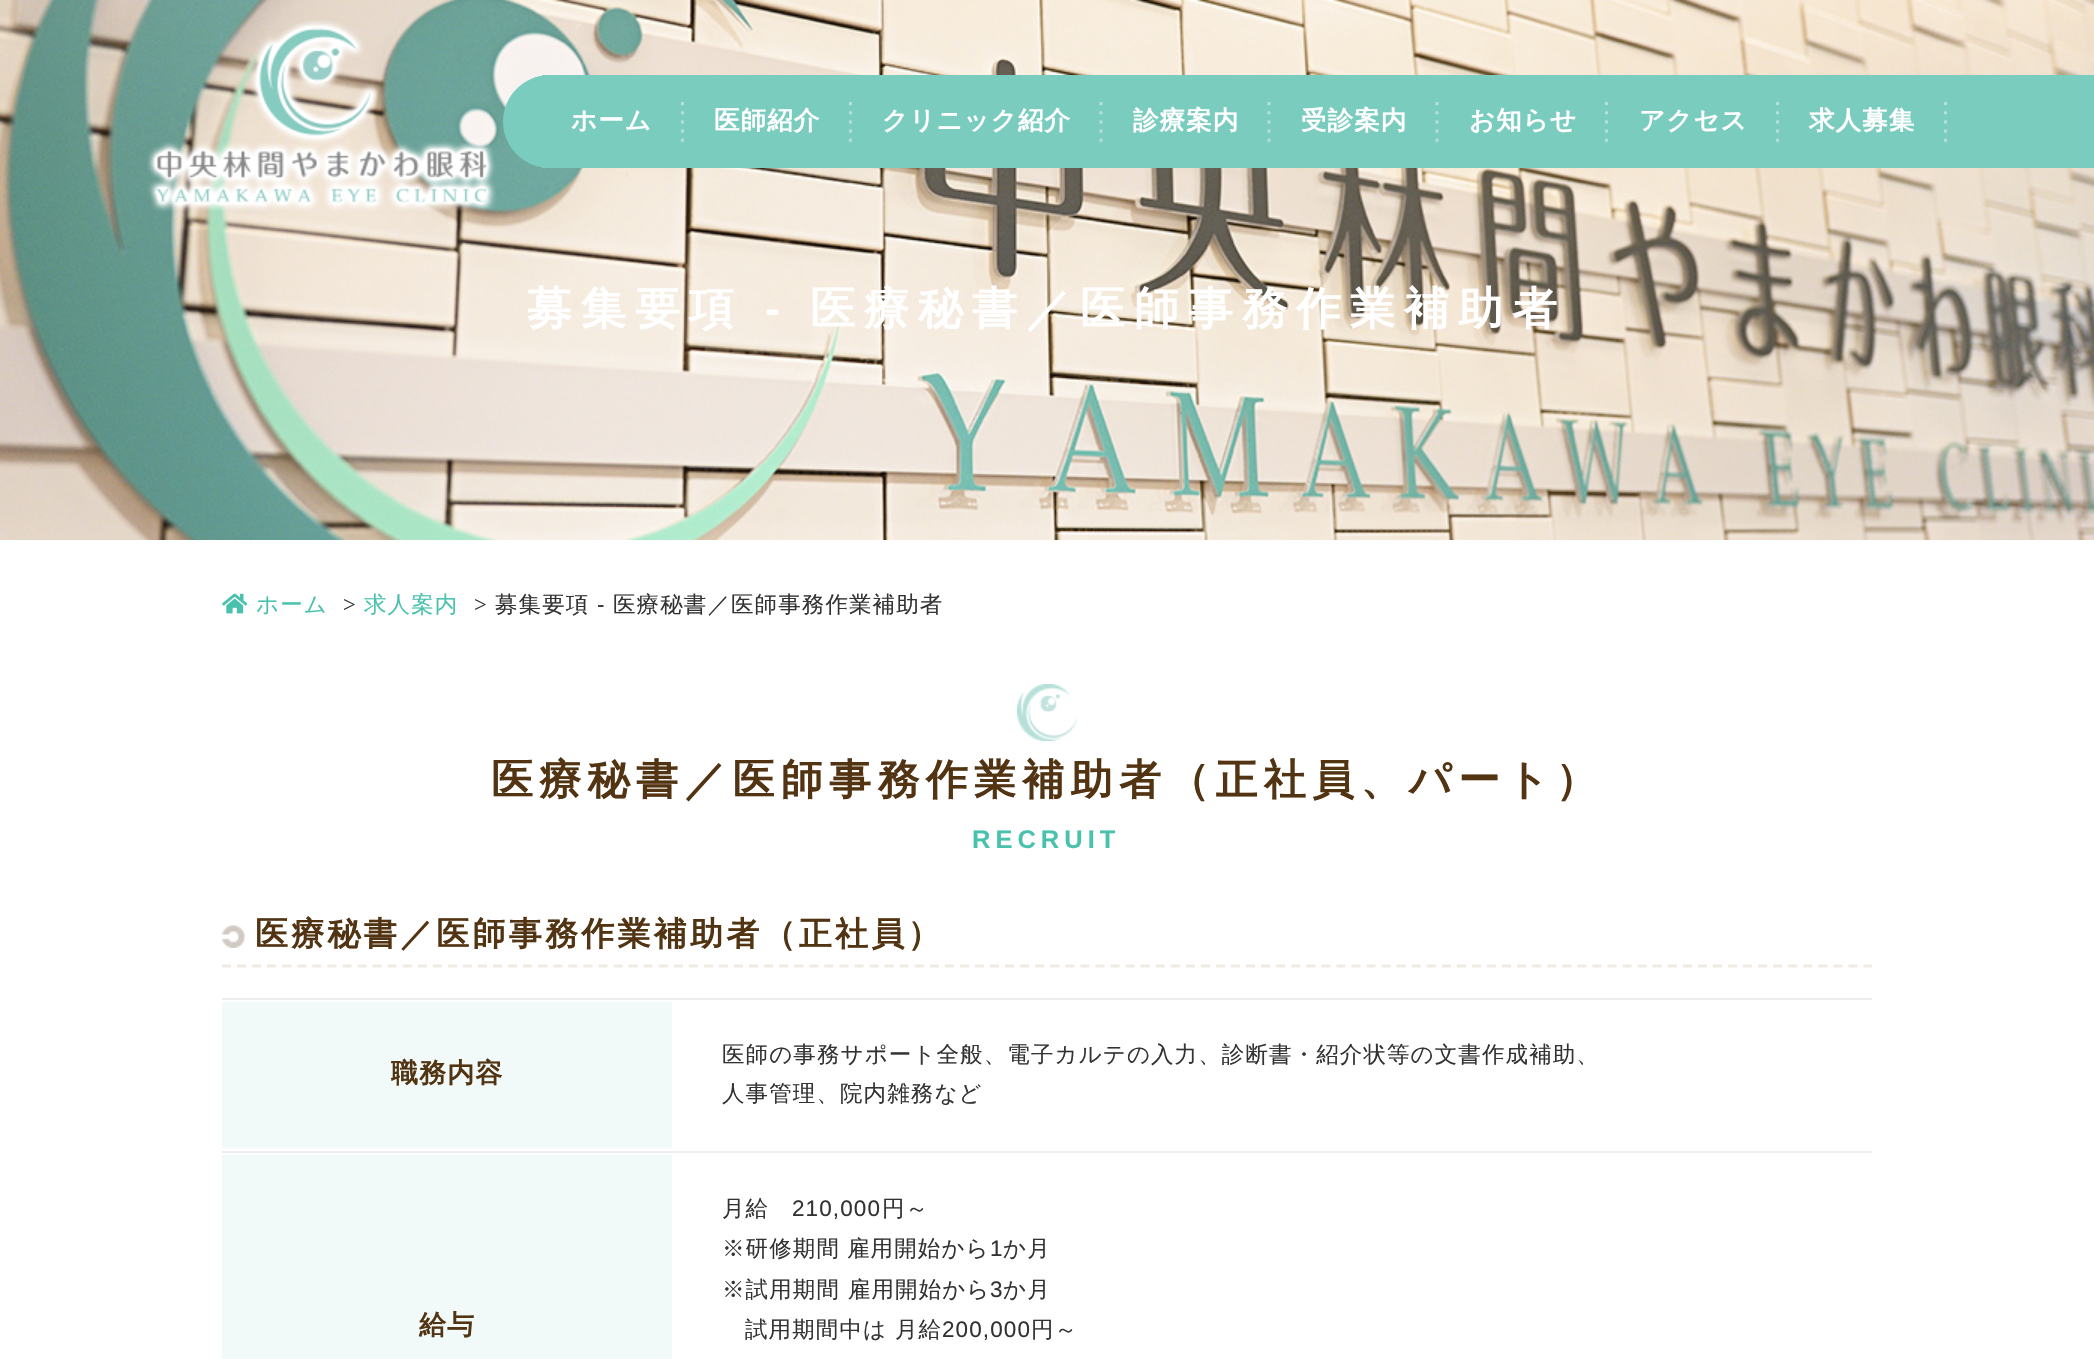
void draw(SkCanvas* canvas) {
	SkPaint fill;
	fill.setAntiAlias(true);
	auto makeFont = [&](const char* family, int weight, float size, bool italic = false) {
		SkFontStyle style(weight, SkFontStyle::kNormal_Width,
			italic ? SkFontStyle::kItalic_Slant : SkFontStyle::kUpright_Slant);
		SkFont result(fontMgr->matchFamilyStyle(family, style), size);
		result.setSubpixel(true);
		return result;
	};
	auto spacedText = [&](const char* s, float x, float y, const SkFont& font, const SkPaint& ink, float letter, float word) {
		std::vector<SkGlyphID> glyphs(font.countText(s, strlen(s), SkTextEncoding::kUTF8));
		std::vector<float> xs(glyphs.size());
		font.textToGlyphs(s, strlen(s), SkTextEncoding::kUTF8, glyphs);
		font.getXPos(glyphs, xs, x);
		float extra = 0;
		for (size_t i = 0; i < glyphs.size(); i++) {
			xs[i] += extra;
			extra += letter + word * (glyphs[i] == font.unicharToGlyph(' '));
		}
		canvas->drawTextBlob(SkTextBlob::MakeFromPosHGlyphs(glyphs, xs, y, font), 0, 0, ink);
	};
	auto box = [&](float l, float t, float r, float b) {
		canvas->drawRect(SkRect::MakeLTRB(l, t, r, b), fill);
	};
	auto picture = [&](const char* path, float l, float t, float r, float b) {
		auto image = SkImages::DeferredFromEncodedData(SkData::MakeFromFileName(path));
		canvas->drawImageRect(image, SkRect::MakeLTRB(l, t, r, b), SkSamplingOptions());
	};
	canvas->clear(0xFFFFFFFF);
	picture("image3.png", 0, 0, 2094, 540);
	fill.setColor(0xFF79CCBE);
	box(1103, 75, 2094, 168);
	picture("image0.png", 147, 20, 496, 212);
	canvas->drawPath(SkPathBuilder().moveTo(549.5f, 75).lineTo(596, 75).lineTo(596, 168).lineTo(549.5f, 168).cubicTo(524, 168, 503, 147, 503, 121.5f).cubicTo(503, 96, 524, 75, 549.5f, 75).close().detach(), fill);
	box(542, 75, 1103, 168);
	picture("image1.png", 681, 102, 684, 143);
	picture("image1.png", 849, 102, 852, 143);
	picture("image2.png", 1099, 102, 1103, 143);
	picture("image2.png", 1267, 102, 1271, 143);
	picture("image2.png", 1435, 102, 1439, 143);
	picture("image1.png", 1605, 102, 1608, 143);
	picture("image1.png", 1776, 102, 1779, 143);
	picture("image1.png", 1944, 102, 1947, 143);
	picture("image4.png", 222, 593, 248, 614);
	picture("image5.png", 1017, 684, 1077, 741);
	picture("image6.png", 222, 925, 245, 948);
	fill.setStyle(SkPaint::kStroke_Style);
	fill.setStrokeWidth(3);
	fill.setColor(0xFFEFEBE2);
	fill.setPathEffect(SkDashPathEffect::Make({{9, 6.06f}}, 0));
	canvas->drawPath(SkPathBuilder().moveTo(222, 966).lineTo(1872, 966).detach(), fill);
	fill.setPathEffect(nullptr);
	fill.setStyle(SkPaint::kFill_Style);
	fill.setColor(0xFFEDEDED);
	box(222, 998, 1872, 1000);
	fill.setColor(0xFFF1FAF8);
	box(222, 1002, 672, 1148);
	fill.setColor(0xFFEDEDED);
	box(222, 1151, 1872, 1153);
	fill.setColor(0xFFF1FAF8);
	box(222, 1155, 672, 1359);
	auto font1 = makeFont("WenQuanYi Zen Hei", 700, 25.5f);
	fill.setColor(0xFFFFFFFF);
	spacedText("ホーム", 571, 129, font1, fill, 1.1f, 0);
	spacedText("医師紹介", 714, 129, font1, fill, 1.1f, 0);
	spacedText("クリニック紹介", 882, 129, font1, fill, 1.1f, 0);
	spacedText("診療案内", 1133, 129, font1, fill, 1.1f, 0);
	spacedText("受診案内", 1301, 129, font1, fill, 1.1f, 0);
	spacedText("お知らせ", 1469, 129, font1, fill, 1.1f, 0);
	spacedText("アクセス", 1639, 129, font1, fill, 1.1f, 0);
	spacedText("求人募集", 1809, 129, font1, fill, 1.1f, 0);
	auto font2 = makeFont("WenQuanYi Zen Hei", 700, 45);
	spacedText("募集要項", 527, 324, font2, fill, 9, 0);
	auto font3 = makeFont("Liberation Sans", 700, 45);
	spacedText("-", 765, 324, font3, fill, 9, 0);
	spacedText("医療秘書／医師事務作業補助者", 810, 324, font2, fill, 9, 0);
	auto font4 = makeFont("WenQuanYi Zen Hei", 500, 22.5f);
	fill.setColor(0xFF49C1AD);
	spacedText("ホーム", 256, 612, font4, fill, 1.1f, 0);
	auto font5 = makeFont("Liberation Serif", 400, 22.5f);
	fill.setColor(0xFF333333);
	spacedText(">", 343, 612, font5, fill, 1.1f, 0);
	fill.setColor(0xFF49C1AD);
	spacedText("求人案内", 364, 612, font4, fill, 1.1f, 0);
	fill.setColor(0xFF333333);
	spacedText(">", 474, 612, font5, fill, 1.1f, 0);
	spacedText("募集要項", 495, 612, font4, fill, 1.1f, 0);
	auto font6 = makeFont("Liberation Sans", 400, 22.5f);
	spacedText("-", 597, 612, font6, fill, 1.1f, 0);
	spacedText("医療秘書／医師事務作業補助者", 613, 612, font4, fill, 1.1f, 0);
	auto font7 = makeFont("WenQuanYi Zen Hei", 700, 42);
	fill.setColor(0xFF523413);
	spacedText("医療秘書／医師事務作業補助者（正社員、パート）", 491, 794, font7, fill, 6.3f, 0);
	auto font8 = makeFont("Liberation Sans", 700, 25.5f);
	fill.setColor(0xFF49C1AD);
	spacedText("RECRUIT", 972, 848, font8, fill, 5, 0);
	auto font9 = makeFont("WenQuanYi Zen Hei", 700, 33);
	fill.setColor(0xFF523413);
	spacedText("医療秘書／医師事務作業補助者（正社員）", 255, 945, font9, fill, 3.25f, 0);
	auto font10 = makeFont("WenQuanYi Zen Hei", 700, 27);
	spacedText("職務内容", 391, 1082, font10, fill, 1.1f, 0);
	fill.setColor(0xFF333333);
	spacedText("医師の事務サポート全般、電子カルテの入力、診断書・紹介状等の文書作成補助、", 722, 1062, font4, fill, 1.1f, 0);
	spacedText("人事管理、院内雑務など", 722, 1101, font4, fill, 1.1f, 0);
	fill.setColor(0xFF523413);
	spacedText("給与", 419, 1334, font10, fill, 1.1f, 0);
	fill.setColor(0xFF333333);
	spacedText("月給", 722, 1216, font4, fill, 1.1f, 0);
	spacedText("210,000", 792, 1216, font6, fill, 1.1f, 0);
	spacedText("円～", 882, 1216, font4, fill, 1.1f, 0);
	spacedText("※研修期間", 722, 1256, font4, fill, 1.1f, 0);
	spacedText("雇用開始から", 847, 1256, font4, fill, 1.1f, 0);
	spacedText("1", 990, 1256, font6, fill, 1.1f, 0);
	spacedText("か月", 1003, 1256, font4, fill, 1.1f, 0);
	spacedText("※試用期間 雇用開始から", 722, 1297, font4, fill, 1.1f, 0);
	spacedText("3", 990, 1297, font6, fill, 1.1f, 0);
	spacedText("か月", 1003, 1297, font4, fill, 1.1f, 0);
	spacedText("試用期間中は", 745, 1337, font4, fill, 1.1f, 0);
	spacedText("月給", 895, 1337, font4, fill, 1.1f, 0);
	spacedText("200,000", 942, 1337, font6, fill, 1.1f, 0);
	spacedText("円～", 1031, 1337, font4, fill, 1.1f, 0);
}
